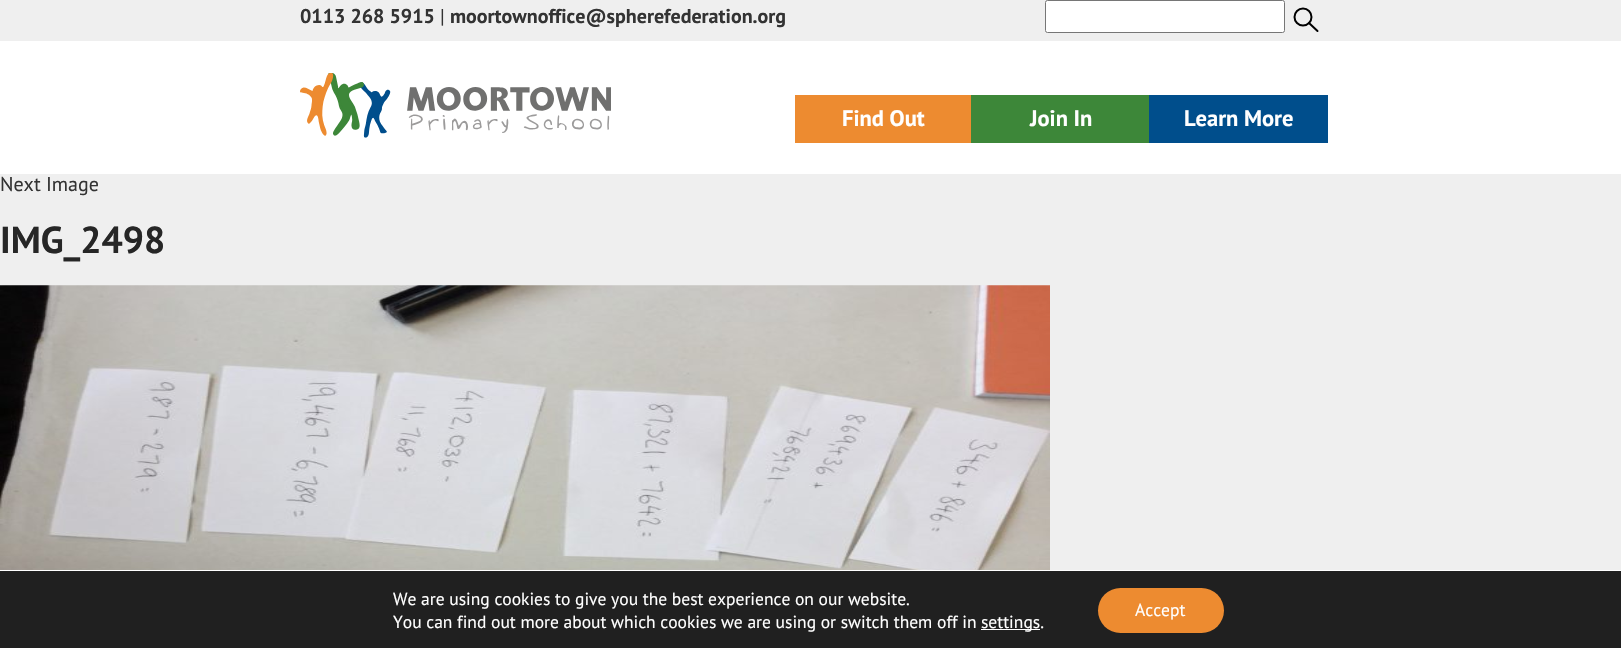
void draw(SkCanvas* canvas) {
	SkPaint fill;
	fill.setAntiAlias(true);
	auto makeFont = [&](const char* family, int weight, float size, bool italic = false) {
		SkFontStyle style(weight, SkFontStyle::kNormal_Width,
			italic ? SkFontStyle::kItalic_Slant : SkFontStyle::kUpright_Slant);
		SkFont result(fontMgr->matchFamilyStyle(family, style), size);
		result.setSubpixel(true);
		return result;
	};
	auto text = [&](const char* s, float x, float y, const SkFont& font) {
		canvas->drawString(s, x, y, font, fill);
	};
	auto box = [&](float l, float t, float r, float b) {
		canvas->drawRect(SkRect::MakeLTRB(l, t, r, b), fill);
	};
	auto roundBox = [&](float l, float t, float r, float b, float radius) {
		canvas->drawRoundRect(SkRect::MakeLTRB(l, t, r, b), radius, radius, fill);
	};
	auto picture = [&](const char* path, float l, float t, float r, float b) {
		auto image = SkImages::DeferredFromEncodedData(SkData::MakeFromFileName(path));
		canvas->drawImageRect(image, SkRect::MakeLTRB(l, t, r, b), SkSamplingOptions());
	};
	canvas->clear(0xFFEFEFEF);
	fill.setColor(0xFFFFFFFF);
	canvas->drawRoundRect(SkRect::MakeLTRB(1045.5f, 0.5f, 1284.5f, 32.5f), 2, 2, fill);
	fill.setStyle(SkPaint::kStroke_Style);
	fill.setStrokeWidth(1);
	fill.setColor(0xFF767676);
	canvas->drawRoundRect(SkRect::MakeLTRB(1045.5f, 0.5f, 1284.5f, 32.5f), 2, 2, fill);
	fill.setStrokeWidth(2);
	fill.setStrokeCap(SkPaint::kRound_Cap);
	fill.setStrokeJoin(SkPaint::kRound_Join);
	fill.setColor(0xFF000000);
	canvas->drawPath(SkPathBuilder().moveTo(1309, 23).lineTo(1317.5f, 31).detach(), fill);
	fill.setStrokeCap(SkPaint::kButt_Cap);
	fill.setStrokeJoin(SkPaint::kMiter_Join);
	canvas->drawCircle(1303, 17, 8.5f, fill);
	fill.setStyle(SkPaint::kFill_Style);
	fill.setColor(0xFFFFFFFF);
	box(0, 41, 1621, 174);
	picture("image0.png", 300, 73, 611, 138);
	fill.setColor(0xFFED8B30);
	box(795, 95, 971, 143);
	fill.setColor(0xFF3D8739);
	box(971, 95, 1149, 143);
	fill.setColor(0xFF004E8C);
	box(1149, 95, 1328, 143);
	picture("image1.png", 0, 285, 1050, 570);
	fill.setColor(0xFF202020);
	box(0, 571, 1621, 648);
	fill.setColor(0xFFFFFFFF);
	box(0, 570, 1621, 571);
	box(981, 629, 1040, 630);
	fill.setColor(0xFFED8B30);
	roundBox(1098, 588, 1224, 633, 22.5f);
	auto font1 = makeFont("PT Sans", 700, 20);
	fill.setColor(0xFF333333);
	text("0113 268 5915", 300, 23, font1);
	auto font2 = makeFont("PT Sans", 400, 20);
	text("|", 440, 23, font2);
	text("moortownoffice@spherefederation.org", 450, 23, font1);
	auto font3 = makeFont("PT Sans", 700, 22.5f);
	fill.setColor(0xFFFFFFFF);
	text("Find Out", 842, 126, font3);
	text("Join In", 1030, 126, font3);
	text("Learn More", 1184, 126, font3);
	fill.setColor(0xFF333333);
	text("Next Image", 0, 191, font2);
	auto font4 = makeFont("PT Sans", 700, 37.5f);
	fill.setColor(0xFF262626);
	text("IMG_2498", 0, 253, font4);
	auto font5 = makeFont("PT Sans", 400, 17.5f);
	fill.setColor(0xFFFFFFFF);
	text("We are using cookies to give you the best experience on our website.", 393, 605, font5);
	text("You can find out more about which cookies we are using or switch them off in", 393, 628, font5);
	text("settings.", 981, 628, font5);
	text("Accept", 1135, 616, font5);
}
